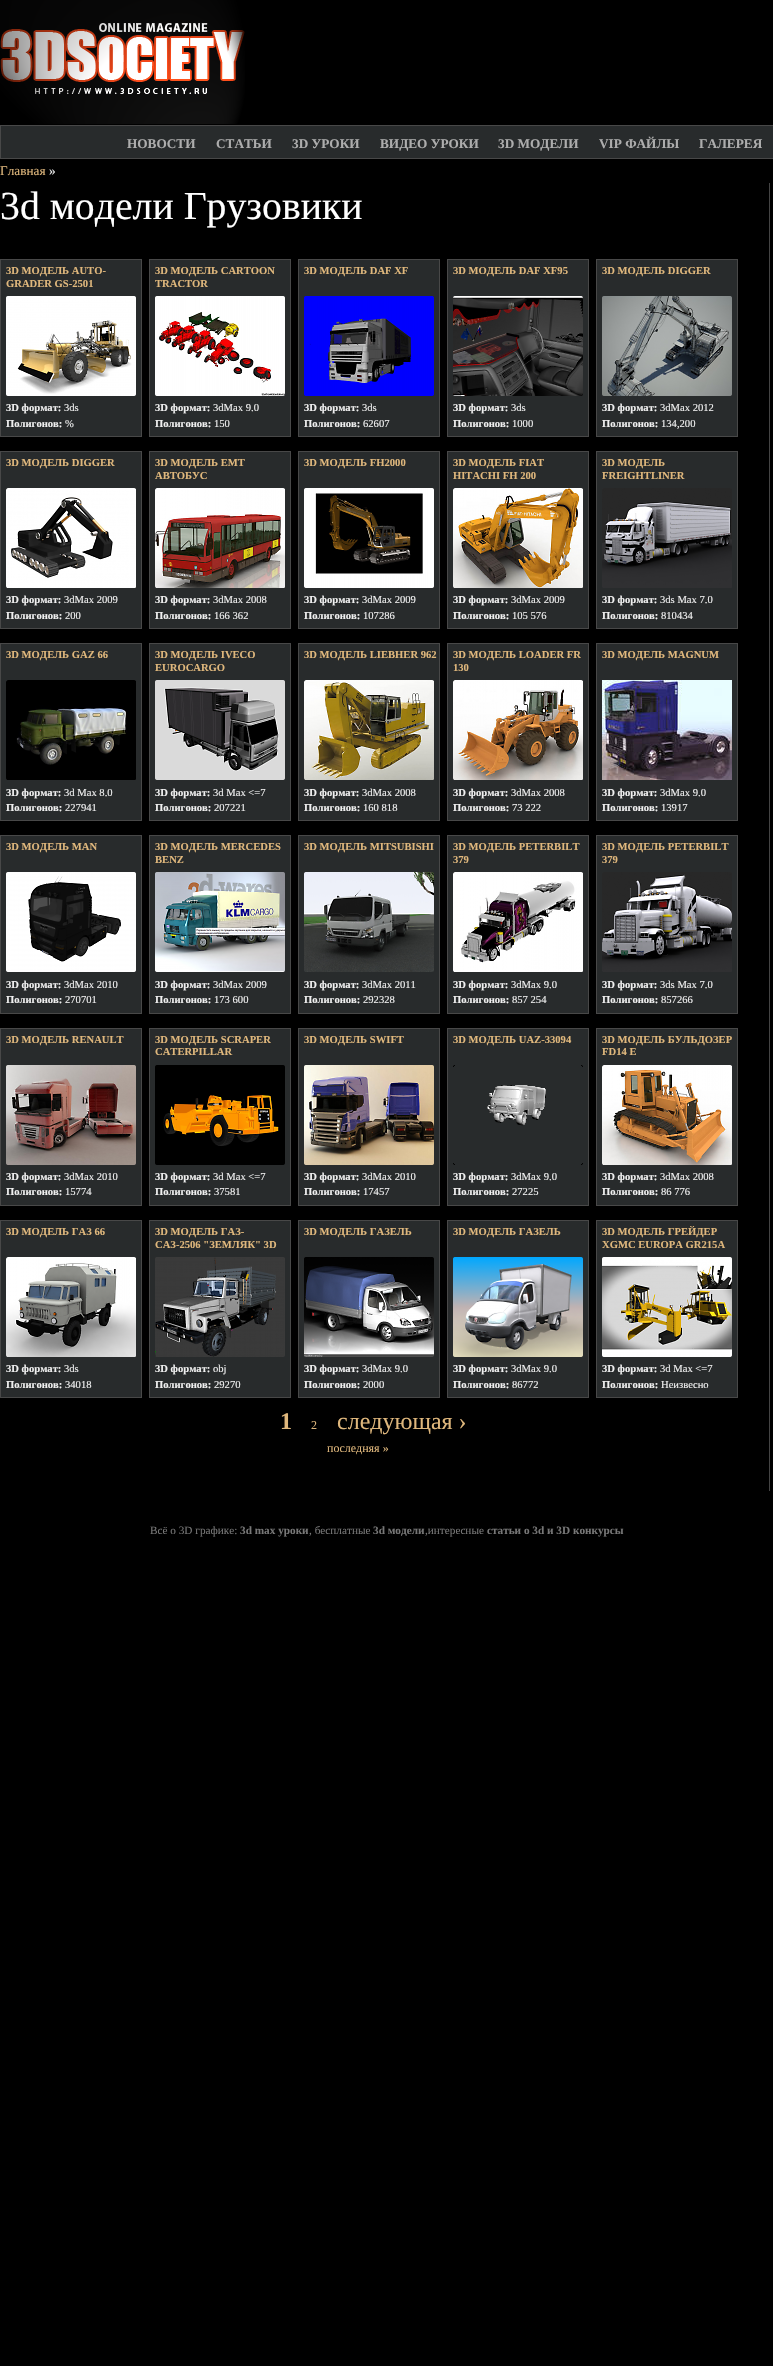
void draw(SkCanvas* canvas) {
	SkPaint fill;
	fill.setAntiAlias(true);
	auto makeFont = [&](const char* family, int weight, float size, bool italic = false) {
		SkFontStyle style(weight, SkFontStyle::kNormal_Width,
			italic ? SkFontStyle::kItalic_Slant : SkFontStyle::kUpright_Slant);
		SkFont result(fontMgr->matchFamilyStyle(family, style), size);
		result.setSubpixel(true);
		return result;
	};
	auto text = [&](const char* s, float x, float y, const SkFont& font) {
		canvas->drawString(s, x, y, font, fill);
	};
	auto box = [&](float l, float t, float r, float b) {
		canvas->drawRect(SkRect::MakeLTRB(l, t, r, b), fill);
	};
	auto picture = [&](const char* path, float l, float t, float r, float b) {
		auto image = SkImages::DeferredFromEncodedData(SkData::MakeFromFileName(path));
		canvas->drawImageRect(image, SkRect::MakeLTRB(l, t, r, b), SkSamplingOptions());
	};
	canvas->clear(0xFF000000);
	picture("image0.png", 0, 0, 245, 124);
	fill.setColor(0xFF282B2C);
	canvas->drawRect(SkRect::MakeLTRB(0.5f, 125.5f, 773.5f, 158.5f), fill);
	fill.setStyle(SkPaint::kStroke_Style);
	fill.setStrokeWidth(1);
	fill.setColor(0xFF484848);
	canvas->drawRect(SkRect::MakeLTRB(0.5f, 125.5f, 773.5f, 158.5f), fill);
	fill.setStyle(SkPaint::kFill_Style);
	fill.setColor(0xFF444444);
	box(769, 183, 770, 1491);
	fill.setColor(0xFF282B2C);
	canvas->drawRect(SkRect::MakeLTRB(0.5f, 259.5f, 141.5f, 436.5f), fill);
	fill.setStyle(SkPaint::kStroke_Style);
	fill.setColor(0xFF484848);
	canvas->drawRect(SkRect::MakeLTRB(0.5f, 259.5f, 141.5f, 436.5f), fill);
	picture("image1.png", 6, 296, 136, 396);
	fill.setStyle(SkPaint::kFill_Style);
	fill.setColor(0xFF282B2C);
	canvas->drawRect(SkRect::MakeLTRB(149.5f, 259.5f, 290.5f, 436.5f), fill);
	fill.setStyle(SkPaint::kStroke_Style);
	fill.setColor(0xFF484848);
	canvas->drawRect(SkRect::MakeLTRB(149.5f, 259.5f, 290.5f, 436.5f), fill);
	picture("image2.png", 155, 296, 285, 396);
	fill.setStyle(SkPaint::kFill_Style);
	fill.setColor(0xFF282B2C);
	canvas->drawRect(SkRect::MakeLTRB(298.5f, 259.5f, 439.5f, 436.5f), fill);
	fill.setStyle(SkPaint::kStroke_Style);
	fill.setColor(0xFF484848);
	canvas->drawRect(SkRect::MakeLTRB(298.5f, 259.5f, 439.5f, 436.5f), fill);
	picture("image3.png", 304, 296, 434, 396);
	fill.setStyle(SkPaint::kFill_Style);
	fill.setColor(0xFF282B2C);
	canvas->drawRect(SkRect::MakeLTRB(447.5f, 259.5f, 588.5f, 436.5f), fill);
	fill.setStyle(SkPaint::kStroke_Style);
	fill.setColor(0xFF484848);
	canvas->drawRect(SkRect::MakeLTRB(447.5f, 259.5f, 588.5f, 436.5f), fill);
	picture("image4.png", 453, 296, 583, 396);
	fill.setStyle(SkPaint::kFill_Style);
	fill.setColor(0xFF282B2C);
	canvas->drawRect(SkRect::MakeLTRB(596.5f, 259.5f, 737.5f, 436.5f), fill);
	fill.setStyle(SkPaint::kStroke_Style);
	fill.setColor(0xFF484848);
	canvas->drawRect(SkRect::MakeLTRB(596.5f, 259.5f, 737.5f, 436.5f), fill);
	picture("image5.png", 602, 296, 732, 396);
	fill.setStyle(SkPaint::kFill_Style);
	fill.setColor(0xFF282B2C);
	canvas->drawRect(SkRect::MakeLTRB(0.5f, 451.5f, 141.5f, 628.5f), fill);
	fill.setStyle(SkPaint::kStroke_Style);
	fill.setColor(0xFF484848);
	canvas->drawRect(SkRect::MakeLTRB(0.5f, 451.5f, 141.5f, 628.5f), fill);
	picture("image6.png", 6, 488, 136, 588);
	fill.setStyle(SkPaint::kFill_Style);
	fill.setColor(0xFF282B2C);
	canvas->drawRect(SkRect::MakeLTRB(149.5f, 451.5f, 290.5f, 628.5f), fill);
	fill.setStyle(SkPaint::kStroke_Style);
	fill.setColor(0xFF484848);
	canvas->drawRect(SkRect::MakeLTRB(149.5f, 451.5f, 290.5f, 628.5f), fill);
	picture("image7.png", 155, 488, 285, 588);
	fill.setStyle(SkPaint::kFill_Style);
	fill.setColor(0xFF282B2C);
	canvas->drawRect(SkRect::MakeLTRB(298.5f, 451.5f, 439.5f, 628.5f), fill);
	fill.setStyle(SkPaint::kStroke_Style);
	fill.setColor(0xFF484848);
	canvas->drawRect(SkRect::MakeLTRB(298.5f, 451.5f, 439.5f, 628.5f), fill);
	picture("image8.png", 304, 488, 434, 588);
	fill.setStyle(SkPaint::kFill_Style);
	fill.setColor(0xFF282B2C);
	canvas->drawRect(SkRect::MakeLTRB(447.5f, 451.5f, 588.5f, 628.5f), fill);
	fill.setStyle(SkPaint::kStroke_Style);
	fill.setColor(0xFF484848);
	canvas->drawRect(SkRect::MakeLTRB(447.5f, 451.5f, 588.5f, 628.5f), fill);
	picture("image9.png", 453, 488, 583, 588);
	fill.setStyle(SkPaint::kFill_Style);
	fill.setColor(0xFF282B2C);
	canvas->drawRect(SkRect::MakeLTRB(596.5f, 451.5f, 737.5f, 628.5f), fill);
	fill.setStyle(SkPaint::kStroke_Style);
	fill.setColor(0xFF484848);
	canvas->drawRect(SkRect::MakeLTRB(596.5f, 451.5f, 737.5f, 628.5f), fill);
	picture("image10.png", 602, 488, 732, 588);
	fill.setStyle(SkPaint::kFill_Style);
	fill.setColor(0xFF282B2C);
	canvas->drawRect(SkRect::MakeLTRB(0.5f, 643.5f, 141.5f, 820.5f), fill);
	fill.setStyle(SkPaint::kStroke_Style);
	fill.setColor(0xFF484848);
	canvas->drawRect(SkRect::MakeLTRB(0.5f, 643.5f, 141.5f, 820.5f), fill);
	picture("image11.png", 6, 680, 136, 780);
	fill.setStyle(SkPaint::kFill_Style);
	fill.setColor(0xFF282B2C);
	canvas->drawRect(SkRect::MakeLTRB(149.5f, 643.5f, 290.5f, 820.5f), fill);
	fill.setStyle(SkPaint::kStroke_Style);
	fill.setColor(0xFF484848);
	canvas->drawRect(SkRect::MakeLTRB(149.5f, 643.5f, 290.5f, 820.5f), fill);
	picture("image12.png", 155, 680, 285, 780);
	fill.setStyle(SkPaint::kFill_Style);
	fill.setColor(0xFF282B2C);
	canvas->drawRect(SkRect::MakeLTRB(298.5f, 643.5f, 439.5f, 820.5f), fill);
	fill.setStyle(SkPaint::kStroke_Style);
	fill.setColor(0xFF484848);
	canvas->drawRect(SkRect::MakeLTRB(298.5f, 643.5f, 439.5f, 820.5f), fill);
	picture("image13.png", 304, 680, 434, 780);
	fill.setStyle(SkPaint::kFill_Style);
	fill.setColor(0xFF282B2C);
	canvas->drawRect(SkRect::MakeLTRB(447.5f, 643.5f, 588.5f, 820.5f), fill);
	fill.setStyle(SkPaint::kStroke_Style);
	fill.setColor(0xFF484848);
	canvas->drawRect(SkRect::MakeLTRB(447.5f, 643.5f, 588.5f, 820.5f), fill);
	picture("image14.png", 453, 680, 583, 780);
	fill.setStyle(SkPaint::kFill_Style);
	fill.setColor(0xFF282B2C);
	canvas->drawRect(SkRect::MakeLTRB(596.5f, 643.5f, 737.5f, 820.5f), fill);
	fill.setStyle(SkPaint::kStroke_Style);
	fill.setColor(0xFF484848);
	canvas->drawRect(SkRect::MakeLTRB(596.5f, 643.5f, 737.5f, 820.5f), fill);
	picture("image15.png", 602, 680, 732, 780);
	fill.setStyle(SkPaint::kFill_Style);
	fill.setColor(0xFF282B2C);
	canvas->drawRect(SkRect::MakeLTRB(0.5f, 835.5f, 141.5f, 1013.5f), fill);
	fill.setStyle(SkPaint::kStroke_Style);
	fill.setColor(0xFF484848);
	canvas->drawRect(SkRect::MakeLTRB(0.5f, 835.5f, 141.5f, 1013.5f), fill);
	picture("image16.png", 6, 872, 136, 972);
	fill.setStyle(SkPaint::kFill_Style);
	fill.setColor(0xFF282B2C);
	canvas->drawRect(SkRect::MakeLTRB(149.5f, 835.5f, 290.5f, 1013.5f), fill);
	fill.setStyle(SkPaint::kStroke_Style);
	fill.setColor(0xFF484848);
	canvas->drawRect(SkRect::MakeLTRB(149.5f, 835.5f, 290.5f, 1013.5f), fill);
	picture("image17.png", 155, 872, 285, 972);
	fill.setStyle(SkPaint::kFill_Style);
	fill.setColor(0xFF282B2C);
	canvas->drawRect(SkRect::MakeLTRB(298.5f, 835.5f, 439.5f, 1013.5f), fill);
	fill.setStyle(SkPaint::kStroke_Style);
	fill.setColor(0xFF484848);
	canvas->drawRect(SkRect::MakeLTRB(298.5f, 835.5f, 439.5f, 1013.5f), fill);
	picture("image18.png", 304, 872, 434, 972);
	fill.setStyle(SkPaint::kFill_Style);
	fill.setColor(0xFF282B2C);
	canvas->drawRect(SkRect::MakeLTRB(447.5f, 835.5f, 588.5f, 1013.5f), fill);
	fill.setStyle(SkPaint::kStroke_Style);
	fill.setColor(0xFF484848);
	canvas->drawRect(SkRect::MakeLTRB(447.5f, 835.5f, 588.5f, 1013.5f), fill);
	picture("image19.png", 453, 872, 583, 972);
	fill.setStyle(SkPaint::kFill_Style);
	fill.setColor(0xFF282B2C);
	canvas->drawRect(SkRect::MakeLTRB(596.5f, 835.5f, 737.5f, 1013.5f), fill);
	fill.setStyle(SkPaint::kStroke_Style);
	fill.setColor(0xFF484848);
	canvas->drawRect(SkRect::MakeLTRB(596.5f, 835.5f, 737.5f, 1013.5f), fill);
	picture("image20.png", 602, 872, 732, 972);
	fill.setStyle(SkPaint::kFill_Style);
	fill.setColor(0xFF282B2C);
	canvas->drawRect(SkRect::MakeLTRB(0.5f, 1028.5f, 141.5f, 1205.5f), fill);
	fill.setStyle(SkPaint::kStroke_Style);
	fill.setColor(0xFF484848);
	canvas->drawRect(SkRect::MakeLTRB(0.5f, 1028.5f, 141.5f, 1205.5f), fill);
	picture("image21.png", 6, 1065, 136, 1165);
	fill.setStyle(SkPaint::kFill_Style);
	fill.setColor(0xFF282B2C);
	canvas->drawRect(SkRect::MakeLTRB(149.5f, 1028.5f, 290.5f, 1205.5f), fill);
	fill.setStyle(SkPaint::kStroke_Style);
	fill.setColor(0xFF484848);
	canvas->drawRect(SkRect::MakeLTRB(149.5f, 1028.5f, 290.5f, 1205.5f), fill);
	picture("image22.png", 155, 1065, 285, 1165);
	fill.setStyle(SkPaint::kFill_Style);
	fill.setColor(0xFF282B2C);
	canvas->drawRect(SkRect::MakeLTRB(298.5f, 1028.5f, 439.5f, 1205.5f), fill);
	fill.setStyle(SkPaint::kStroke_Style);
	fill.setColor(0xFF484848);
	canvas->drawRect(SkRect::MakeLTRB(298.5f, 1028.5f, 439.5f, 1205.5f), fill);
	picture("image23.png", 304, 1065, 434, 1165);
	fill.setStyle(SkPaint::kFill_Style);
	fill.setColor(0xFF282B2C);
	canvas->drawRect(SkRect::MakeLTRB(447.5f, 1028.5f, 588.5f, 1205.5f), fill);
	fill.setStyle(SkPaint::kStroke_Style);
	fill.setColor(0xFF484848);
	canvas->drawRect(SkRect::MakeLTRB(447.5f, 1028.5f, 588.5f, 1205.5f), fill);
	picture("image24.png", 453, 1065, 583, 1165);
	fill.setStyle(SkPaint::kFill_Style);
	fill.setColor(0xFF282B2C);
	canvas->drawRect(SkRect::MakeLTRB(596.5f, 1028.5f, 737.5f, 1205.5f), fill);
	fill.setStyle(SkPaint::kStroke_Style);
	fill.setColor(0xFF484848);
	canvas->drawRect(SkRect::MakeLTRB(596.5f, 1028.5f, 737.5f, 1205.5f), fill);
	picture("image25.png", 602, 1065, 732, 1165);
	fill.setStyle(SkPaint::kFill_Style);
	fill.setColor(0xFF282B2C);
	canvas->drawRect(SkRect::MakeLTRB(0.5f, 1220.5f, 141.5f, 1397.5f), fill);
	fill.setStyle(SkPaint::kStroke_Style);
	fill.setColor(0xFF484848);
	canvas->drawRect(SkRect::MakeLTRB(0.5f, 1220.5f, 141.5f, 1397.5f), fill);
	picture("image26.png", 6, 1257, 136, 1357);
	fill.setStyle(SkPaint::kFill_Style);
	fill.setColor(0xFF282B2C);
	canvas->drawRect(SkRect::MakeLTRB(149.5f, 1220.5f, 290.5f, 1397.5f), fill);
	fill.setStyle(SkPaint::kStroke_Style);
	fill.setColor(0xFF484848);
	canvas->drawRect(SkRect::MakeLTRB(149.5f, 1220.5f, 290.5f, 1397.5f), fill);
	picture("image27.png", 155, 1257, 285, 1357);
	fill.setStyle(SkPaint::kFill_Style);
	fill.setColor(0xFF282B2C);
	canvas->drawRect(SkRect::MakeLTRB(298.5f, 1220.5f, 439.5f, 1397.5f), fill);
	fill.setStyle(SkPaint::kStroke_Style);
	fill.setColor(0xFF484848);
	canvas->drawRect(SkRect::MakeLTRB(298.5f, 1220.5f, 439.5f, 1397.5f), fill);
	picture("image28.png", 304, 1257, 434, 1357);
	fill.setStyle(SkPaint::kFill_Style);
	fill.setColor(0xFF282B2C);
	canvas->drawRect(SkRect::MakeLTRB(447.5f, 1220.5f, 588.5f, 1397.5f), fill);
	fill.setStyle(SkPaint::kStroke_Style);
	fill.setColor(0xFF484848);
	canvas->drawRect(SkRect::MakeLTRB(447.5f, 1220.5f, 588.5f, 1397.5f), fill);
	picture("image29.png", 453, 1257, 583, 1357);
	fill.setStyle(SkPaint::kFill_Style);
	fill.setColor(0xFF282B2C);
	canvas->drawRect(SkRect::MakeLTRB(596.5f, 1220.5f, 737.5f, 1397.5f), fill);
	fill.setStyle(SkPaint::kStroke_Style);
	fill.setColor(0xFF484848);
	canvas->drawRect(SkRect::MakeLTRB(596.5f, 1220.5f, 737.5f, 1397.5f), fill);
	picture("image30.png", 602, 1257, 732, 1357);
	auto font1 = makeFont("Liberation Serif", 700, 13.25f);
	fill.setStyle(SkPaint::kFill_Style);
	fill.setColor(0xFFADADAD);
	text("НОВОСТИ", 127, 148, font1);
	text("СТАТЬИ", 216, 148, font1);
	text("3D УРОКИ", 292, 148, font1);
	text("ВИДЕО УРОКИ", 380, 148, font1);
	text("3D МОДЕЛИ", 498, 148, font1);
	text("VIP ФАЙЛЫ", 599, 148, font1);
	text("ГАЛЕРЕЯ", 699, 148, font1);
	auto font2 = makeFont("Liberation Serif", 400, 13.25f);
	fill.setColor(0xFFDFB77C);
	text("Главная", 0, 175, font2);
	fill.setColor(0xFFF0F0F0);
	text("»", 49, 175, font2);
	auto font3 = makeFont("Liberation Serif", 400, 39.75f);
	fill.setColor(0xFFFFFFFF);
	text("3d модели Грузовики", 0, 219, font3);
	auto font4 = makeFont("Liberation Serif", 700, 10.6f);
	fill.setColor(0xFFDFB77C);
	text("3D МОДЕЛЬ AUTO-", 6, 274, font4);
	text("GRADER GS-2501", 6, 287, font4);
	fill.setColor(0xFFF0F0F0);
	text("3D формат:", 6, 411, font4);
	auto font5 = makeFont("Liberation Serif", 400, 10.6f);
	text("3ds", 64, 411, font5);
	text("Полигонов:", 6, 427, font4);
	text("%", 65, 427, font5);
	fill.setColor(0xFFDFB77C);
	text("3D МОДЕЛЬ CARTOON", 155, 274, font4);
	text("TRACTOR", 155, 287, font4);
	fill.setColor(0xFFF0F0F0);
	text("3D формат:", 155, 411, font4);
	text("3dMax 9.0", 213, 411, font5);
	text("Полигонов:", 155, 427, font4);
	text("150", 214, 427, font5);
	fill.setColor(0xFFDFB77C);
	text("3D МОДЕЛЬ DAF XF", 304, 274, font4);
	fill.setColor(0xFFF0F0F0);
	text("3D формат:", 304, 411, font4);
	text("3ds", 362, 411, font5);
	text("Полигонов:", 304, 427, font4);
	text("62607", 363, 427, font5);
	fill.setColor(0xFFDFB77C);
	text("3D МОДЕЛЬ DAF XF95", 453, 274, font4);
	fill.setColor(0xFFF0F0F0);
	text("3D формат:", 453, 411, font4);
	text("3ds", 511, 411, font5);
	text("Полигонов:", 453, 427, font4);
	text("1000", 512, 427, font5);
	fill.setColor(0xFFDFB77C);
	text("3D МОДЕЛЬ DIGGER", 602, 274, font4);
	fill.setColor(0xFFF0F0F0);
	text("3D формат:", 602, 411, font4);
	text("3dMax 2012", 660, 411, font5);
	text("Полигонов:", 602, 427, font4);
	text("134,200", 661, 427, font5);
	fill.setColor(0xFFDFB77C);
	text("3D МОДЕЛЬ DIGGER", 6, 466, font4);
	fill.setColor(0xFFF0F0F0);
	text("3D формат:", 6, 603, font4);
	text("3dMax 2009", 64, 603, font5);
	text("Полигонов:", 6, 619, font4);
	text("200", 65, 619, font5);
	fill.setColor(0xFFDFB77C);
	text("3D МОДЕЛЬ EMT", 155, 466, font4);
	text("АВТОБУС", 155, 479, font4);
	fill.setColor(0xFFF0F0F0);
	text("3D формат:", 155, 603, font4);
	text("3dMax 2008", 213, 603, font5);
	text("Полигонов:", 155, 619, font4);
	text("166 362", 214, 619, font5);
	fill.setColor(0xFFDFB77C);
	text("3D МОДЕЛЬ FH2000", 304, 466, font4);
	fill.setColor(0xFFF0F0F0);
	text("3D формат:", 304, 603, font4);
	text("3dMax 2009", 362, 603, font5);
	text("Полигонов:", 304, 619, font4);
	text("107286", 363, 619, font5);
	fill.setColor(0xFFDFB77C);
	text("3D МОДЕЛЬ FIAT", 453, 466, font4);
	text("HITACHI FH 200", 453, 479, font4);
	fill.setColor(0xFFF0F0F0);
	text("3D формат:", 453, 603, font4);
	text("3dMax 2009", 511, 603, font5);
	text("Полигонов:", 453, 619, font4);
	text("105 576", 512, 619, font5);
	fill.setColor(0xFFDFB77C);
	text("3D МОДЕЛЬ", 602, 466, font4);
	text("FREIGHTLINER", 602, 479, font4);
	fill.setColor(0xFFF0F0F0);
	text("3D формат:", 602, 603, font4);
	text("3ds Max 7.0", 660, 603, font5);
	text("Полигонов:", 602, 619, font4);
	text("810434", 661, 619, font5);
	fill.setColor(0xFFDFB77C);
	text("3D МОДЕЛЬ GAZ 66", 6, 658, font4);
	fill.setColor(0xFFF0F0F0);
	text("3D формат:", 6, 796, font4);
	text("3d Max 8.0", 64, 796, font5);
	text("Полигонов:", 6, 811, font4);
	text("227941", 65, 811, font5);
	fill.setColor(0xFFDFB77C);
	text("3D МОДЕЛЬ IVECO", 155, 658, font4);
	text("EUROCARGO", 155, 671, font4);
	fill.setColor(0xFFF0F0F0);
	text("3D формат:", 155, 796, font4);
	text("3d Max <=7", 213, 796, font5);
	text("Полигонов:", 155, 811, font4);
	text("207221", 214, 811, font5);
	fill.setColor(0xFFDFB77C);
	text("3D МОДЕЛЬ LIEBHER 962", 304, 658, font4);
	fill.setColor(0xFFF0F0F0);
	text("3D формат:", 304, 796, font4);
	text("3dMax 2008", 362, 796, font5);
	text("Полигонов:", 304, 811, font4);
	text("160 818", 363, 811, font5);
	fill.setColor(0xFFDFB77C);
	text("3D МОДЕЛЬ LOADER FR", 453, 658, font4);
	text("130", 453, 671, font4);
	fill.setColor(0xFFF0F0F0);
	text("3D формат:", 453, 796, font4);
	text("3dMax 2008", 511, 796, font5);
	text("Полигонов:", 453, 811, font4);
	text("73 222", 512, 811, font5);
	fill.setColor(0xFFDFB77C);
	text("3D МОДЕЛЬ MAGNUM", 602, 658, font4);
	fill.setColor(0xFFF0F0F0);
	text("3D формат:", 602, 796, font4);
	text("3dMax 9.0", 660, 796, font5);
	text("Полигонов:", 602, 811, font4);
	text("13917", 661, 811, font5);
	fill.setColor(0xFFDFB77C);
	text("3D МОДЕЛЬ MAN", 6, 850, font4);
	fill.setColor(0xFFF0F0F0);
	text("3D формат:", 6, 988, font4);
	text("3dMax 2010", 64, 988, font5);
	text("Полигонов:", 6, 1003, font4);
	text("270701", 65, 1003, font5);
	fill.setColor(0xFFDFB77C);
	text("3D МОДЕЛЬ MERCEDES", 155, 850, font4);
	text("BENZ", 155, 863, font4);
	fill.setColor(0xFFF0F0F0);
	text("3D формат:", 155, 988, font4);
	text("3dMax 2009", 213, 988, font5);
	text("Полигонов:", 155, 1003, font4);
	text("173 600", 214, 1003, font5);
	fill.setColor(0xFFDFB77C);
	text("3D МОДЕЛЬ MITSUBISHI", 304, 850, font4);
	fill.setColor(0xFFF0F0F0);
	text("3D формат:", 304, 988, font4);
	text("3dMax 2011", 362, 988, font5);
	text("Полигонов:", 304, 1003, font4);
	text("292328", 363, 1003, font5);
	fill.setColor(0xFFDFB77C);
	text("3D МОДЕЛЬ PETERBILT", 453, 850, font4);
	text("379", 453, 863, font4);
	fill.setColor(0xFFF0F0F0);
	text("3D формат:", 453, 988, font4);
	text("3dMax 9.0", 511, 988, font5);
	text("Полигонов:", 453, 1003, font4);
	text("857 254", 512, 1003, font5);
	fill.setColor(0xFFDFB77C);
	text("3D МОДЕЛЬ PETERBILT", 602, 850, font4);
	text("379", 602, 863, font4);
	fill.setColor(0xFFF0F0F0);
	text("3D формат:", 602, 988, font4);
	text("3ds Max 7.0", 660, 988, font5);
	text("Полигонов:", 602, 1003, font4);
	text("857266", 661, 1003, font5);
	fill.setColor(0xFFDFB77C);
	text("3D МОДЕЛЬ RENAULT", 6, 1043, font4);
	fill.setColor(0xFFF0F0F0);
	text("3D формат:", 6, 1180, font4);
	text("3dMax 2010", 64, 1180, font5);
	text("Полигонов:", 6, 1195, font4);
	text("15774", 65, 1195, font5);
	fill.setColor(0xFFDFB77C);
	text("3D МОДЕЛЬ SCRAPER", 155, 1043, font4);
	text("CATERPILLAR", 155, 1055, font4);
	fill.setColor(0xFFF0F0F0);
	text("3D формат:", 155, 1180, font4);
	text("3d Max <=7", 213, 1180, font5);
	text("Полигонов:", 155, 1195, font4);
	text("37581", 214, 1195, font5);
	fill.setColor(0xFFDFB77C);
	text("3D МОДЕЛЬ SWIFT", 304, 1043, font4);
	fill.setColor(0xFFF0F0F0);
	text("3D формат:", 304, 1180, font4);
	text("3dMax 2010", 362, 1180, font5);
	text("Полигонов:", 304, 1195, font4);
	text("17457", 363, 1195, font5);
	fill.setColor(0xFFDFB77C);
	text("3D МОДЕЛЬ UAZ-33094", 453, 1043, font4);
	fill.setColor(0xFFF0F0F0);
	text("3D формат:", 453, 1180, font4);
	text("3dMax 9.0", 511, 1180, font5);
	text("Полигонов:", 453, 1195, font4);
	text("27225", 512, 1195, font5);
	fill.setColor(0xFFDFB77C);
	text("3D МОДЕЛЬ БУЛЬДОЗЕР", 602, 1043, font4);
	text("FD14 E", 602, 1055, font4);
	fill.setColor(0xFFF0F0F0);
	text("3D формат:", 602, 1180, font4);
	text("3dMax 2008", 660, 1180, font5);
	text("Полигонов:", 602, 1195, font4);
	text("86 776", 661, 1195, font5);
	fill.setColor(0xFFDFB77C);
	text("3D МОДЕЛЬ ГАЗ 66", 6, 1235, font4);
	fill.setColor(0xFFF0F0F0);
	text("3D формат:", 6, 1372, font4);
	text("3ds", 64, 1372, font5);
	text("Полигонов:", 6, 1388, font4);
	text("34018", 65, 1388, font5);
	fill.setColor(0xFFDFB77C);
	text("3D МОДЕЛЬ ГАЗ-", 155, 1235, font4);
	text("САЗ-2506 \"ЗЕМЛЯК\" 3D", 155, 1248, font4);
	fill.setColor(0xFFF0F0F0);
	text("3D формат:", 155, 1372, font4);
	text("obj", 213, 1372, font5);
	text("Полигонов:", 155, 1388, font4);
	text("29270", 214, 1388, font5);
	fill.setColor(0xFFDFB77C);
	text("3D МОДЕЛЬ ГАЗЕЛЬ", 304, 1235, font4);
	fill.setColor(0xFFF0F0F0);
	text("3D формат:", 304, 1372, font4);
	text("3dMax 9.0", 362, 1372, font5);
	text("Полигонов:", 304, 1388, font4);
	text("2000", 363, 1388, font5);
	fill.setColor(0xFFDFB77C);
	text("3D МОДЕЛЬ ГАЗЕЛЬ", 453, 1235, font4);
	fill.setColor(0xFFF0F0F0);
	text("3D формат:", 453, 1372, font4);
	text("3dMax 9.0", 511, 1372, font5);
	text("Полигонов:", 453, 1388, font4);
	text("86772", 512, 1388, font5);
	fill.setColor(0xFFDFB77C);
	text("3D МОДЕЛЬ ГРЕЙДЕР", 602, 1235, font4);
	text("XGMC EUROPA GR215A", 602, 1248, font4);
	fill.setColor(0xFFF0F0F0);
	text("3D формат:", 602, 1372, font4);
	text("3d Max <=7", 660, 1372, font5);
	text("Полигонов:", 602, 1388, font4);
	text("Неизвесно", 661, 1388, font5);
	auto font6 = makeFont("Liberation Serif", 700, 24);
	fill.setColor(0xFFDFB77C);
	text("1", 280, 1429, font6);
	auto font7 = makeFont("Liberation Serif", 400, 12);
	text("2", 311, 1429, font7);
	auto font8 = makeFont("Liberation Serif", 400, 24);
	text("следующая ›", 337, 1429, font8);
	text("последняя »", 327, 1452, font7);
	auto font9 = makeFont("Liberation Serif", 400, 11.25f);
	fill.setColor(0xFF777777);
	text("Всё о 3D графике:", 150, 1534, font9);
	auto font10 = makeFont("Liberation Serif", 700, 11.25f);
	text("3d max уроки", 240, 1534, font10);
	text(", бесплатные", 309, 1534, font9);
	text("3d модели", 373, 1534, font10);
	text(",интересные", 425, 1534, font9);
	text("статьи о 3d и 3D конкурсы", 487, 1534, font10);
}
